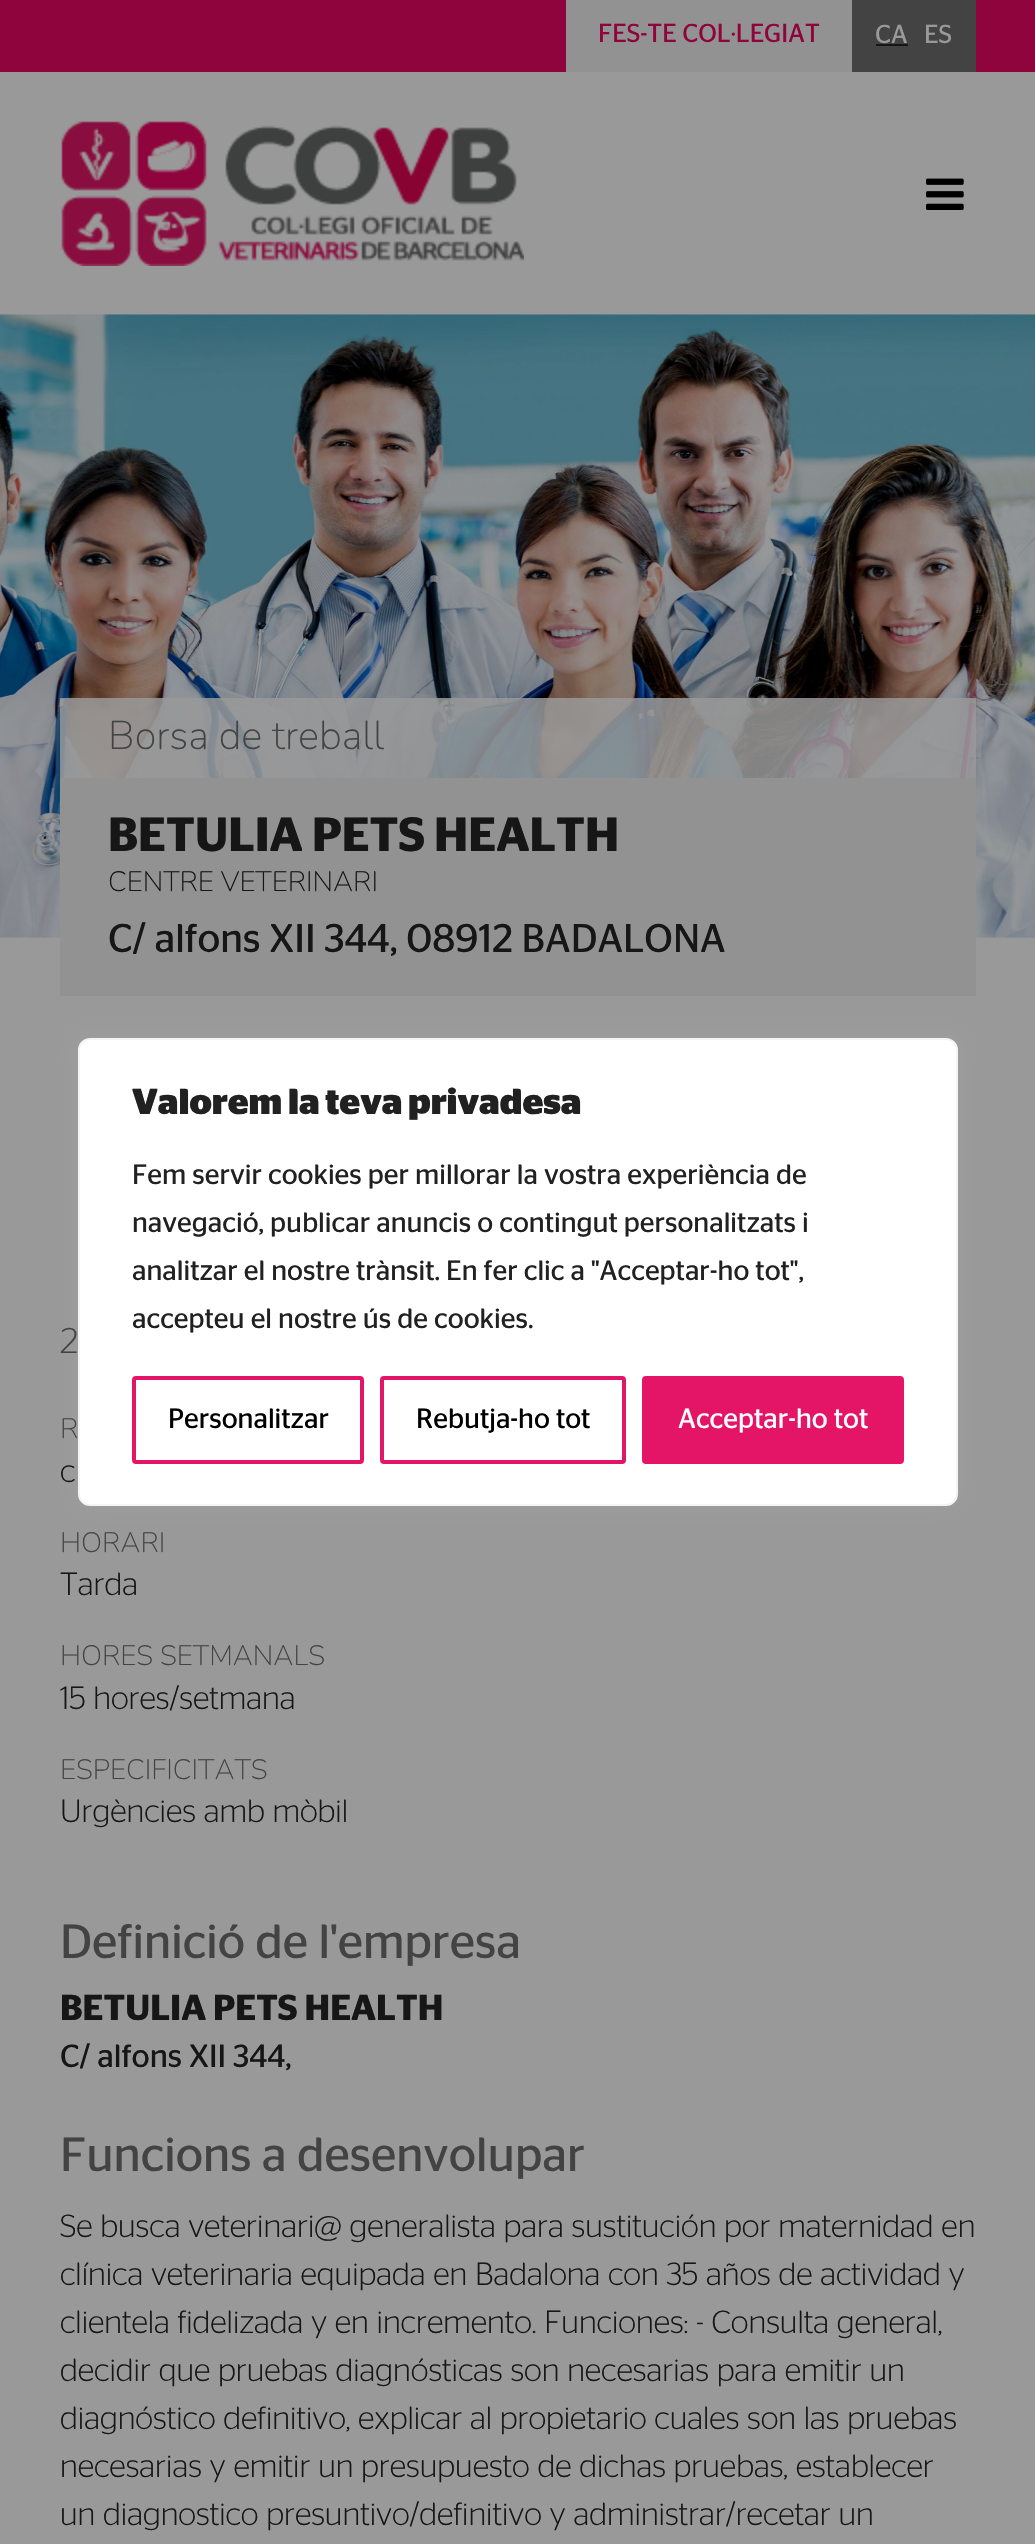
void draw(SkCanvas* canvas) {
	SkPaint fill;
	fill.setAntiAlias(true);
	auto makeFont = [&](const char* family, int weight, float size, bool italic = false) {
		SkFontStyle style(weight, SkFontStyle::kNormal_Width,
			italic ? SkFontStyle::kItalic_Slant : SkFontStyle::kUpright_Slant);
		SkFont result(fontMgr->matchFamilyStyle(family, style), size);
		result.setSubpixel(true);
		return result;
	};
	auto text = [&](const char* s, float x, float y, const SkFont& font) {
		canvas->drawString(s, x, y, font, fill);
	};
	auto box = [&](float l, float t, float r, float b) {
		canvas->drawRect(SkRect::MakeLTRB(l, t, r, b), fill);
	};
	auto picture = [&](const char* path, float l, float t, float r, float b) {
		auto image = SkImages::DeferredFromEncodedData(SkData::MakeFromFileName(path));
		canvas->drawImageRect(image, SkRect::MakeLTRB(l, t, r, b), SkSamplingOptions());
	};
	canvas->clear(0xFF999999);
	fill.setColor(0xFF8F043D);
	box(0, 0, 1035, 72);
	fill.setColor(0xFF929292);
	box(566, 0, 852, 72);
	fill.setColor(0xFF434343);
	box(852, 0, 976, 72);
	fill.setColor(0xFF161617);
	box(876, 44, 908, 46);
	picture("image0.png", 61, 121, 524, 266);
	picture("image1.png", 926, 178, 964, 210);
	picture("image2.png", 0, 314, 1035, 938);
	fill.setColor(0xD9999999);
	box(60, 698, 976, 778);
	fill.setColor(0xFF929292);
	box(60, 778, 976, 996);
	fill.setColor(0x4DACABAB);
	fill.setMaskFilter(SkMaskFilter::MakeBlur(kNormal_SkBlurStyle, 10));
	canvas->drawRoundRect(SkRect::MakeLTRB(78, 1036, 958, 1504), 12, 12, fill);
	fill.setMaskFilter(nullptr);
	fill.setColor(0xFFFFFFFF);
	canvas->drawRoundRect(SkRect::MakeLTRB(79, 1039, 957, 1505), 11, 11, fill);
	fill.setStyle(SkPaint::kStroke_Style);
	fill.setStrokeWidth(2);
	fill.setColor(0xFFF4F4F4);
	canvas->drawRoundRect(SkRect::MakeLTRB(79, 1039, 957, 1505), 11, 11, fill);
	fill.setStrokeWidth(4);
	fill.setColor(0xFFE41567);
	canvas->drawRoundRect(SkRect::MakeLTRB(134, 1378, 362, 1462), 2, 2, fill);
	canvas->drawRoundRect(SkRect::MakeLTRB(382, 1378, 624, 1462), 2, 2, fill);
	fill.setStyle(SkPaint::kFill_Style);
	canvas->drawRoundRect(SkRect::MakeLTRB(644, 1378, 902, 1462), 2, 2, fill);
	fill.setStyle(SkPaint::kStroke_Style);
	canvas->drawRoundRect(SkRect::MakeLTRB(644, 1378, 902, 1462), 2, 2, fill);
	auto font1 = makeFont("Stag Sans", 400, 26);
	fill.setStyle(SkPaint::kFill_Style);
	fill.setColor(0xFF8F043D);
	text("FES-TE COL·LEGIAT", 598, 42, font1);
	fill.setColor(0xFF999999);
	text("CA", 875, 43, font1);
	text("ES", 924, 43, font1);
	auto font2 = makeFont("Nunito", 200, 40);
	fill.setColor(0xFF434343);
	text("Borsa de treball", 108, 749, font2);
	auto font3 = makeFont("Stag Sans", 600, 48);
	fill.setColor(0xFF161617);
	text("BETULIA PETS HEALTH", 108, 851, font3);
	auto font4 = makeFont("Nunito", 200, 28);
	text("CENTRE VETERINARI", 108, 891, font4);
	auto font5 = makeFont("Stag Sans", 400, 40);
	text("C/ alfons XII 344, 08912 BADALONA", 108, 952, font5);
	auto font6 = makeFont("Stag Sans", 300, 36);
	fill.setColor(0xFF434343);
	text("2", 60, 1353, font6);
	text("R", 60, 1438, font4);
	auto font7 = makeFont("Stag Sans", 300, 32);
	fill.setColor(0xFF161617);
	text("c", 60, 1482, font7);
	fill.setColor(0xFF434343);
	text("HORARI", 60, 1552, font4);
	fill.setColor(0xFF161617);
	text("Tarda", 60, 1595, font7);
	fill.setColor(0xFF434343);
	text("HORES SETMANALS", 60, 1665, font4);
	fill.setColor(0xFF161617);
	text("15 hores/setmana", 60, 1709, font7);
	fill.setColor(0xFF434343);
	text("ESPECIFICITATS", 60, 1779, font4);
	fill.setColor(0xFF161617);
	text("Urgències amb mòbil", 60, 1822, font7);
	auto font8 = makeFont("Stag Sans", 400, 48);
	fill.setColor(0xFF434343);
	text("Definició de l'empresa", 60, 1958, font8);
	auto font9 = makeFont("Stag Sans", 600, 36);
	fill.setColor(0xFF161617);
	text("BETULIA PETS HEALTH", 60, 2020, font9);
	auto font10 = makeFont("Stag Sans", 400, 32);
	text("C/ alfons XII 344,", 60, 2067, font10);
	fill.setColor(0xFF434343);
	text("Funcions a desenvolupar", 60, 2171, font8);
	fill.setColor(0xFF161617);
	text("Se busca veterinari@ generalista para sustitución por maternidad en", 60, 2237, font7);
	text("clínica veterinaria equipada en Badalona con 35 años de actividad y", 60, 2285, font7);
	text("clientela fidelizada y en incremento. Funciones: - Consulta general,", 60, 2333, font7);
	text("decidir que pruebas diagnósticas son necesarias para emitir un", 60, 2381, font7);
	text("diagnóstico definitivo, explicar al propietario cuales son las pruebas", 60, 2429, font7);
	text("necesarias y emitir un presupuesto de dichas pruebas, establecer", 60, 2477, font7);
	text("un diagnostico presuntivo/definitivo y administrar/recetar un", 60, 2525, font7);
	auto font11 = makeFont("Stag Sans", 700, 36);
	fill.setColor(0xFF212121);
	text("Valorem la teva privadesa", 132, 1114, font11);
	auto font12 = makeFont("Stag Sans", 400, 28);
	text("Fem servir cookies per millorar la vostra experiència de", 132, 1184, font12);
	text("navegació, publicar anuncis o contingut personalitzats i", 132, 1232, font12);
	text("analitzar el nostre trànsit. En fer clic a \"Acceptar-ho tot\",", 132, 1280, font12);
	text("accepteu el nostre ús de cookies.", 132, 1328, font12);
	fill.setColor(0xFF000000);
	text("Personalitzar", 168, 1428, font12);
	text("Rebutja-ho tot", 416, 1428, font12);
	fill.setColor(0xFFFFFFFF);
	text("Acceptar-ho tot", 678, 1428, font12);
}
